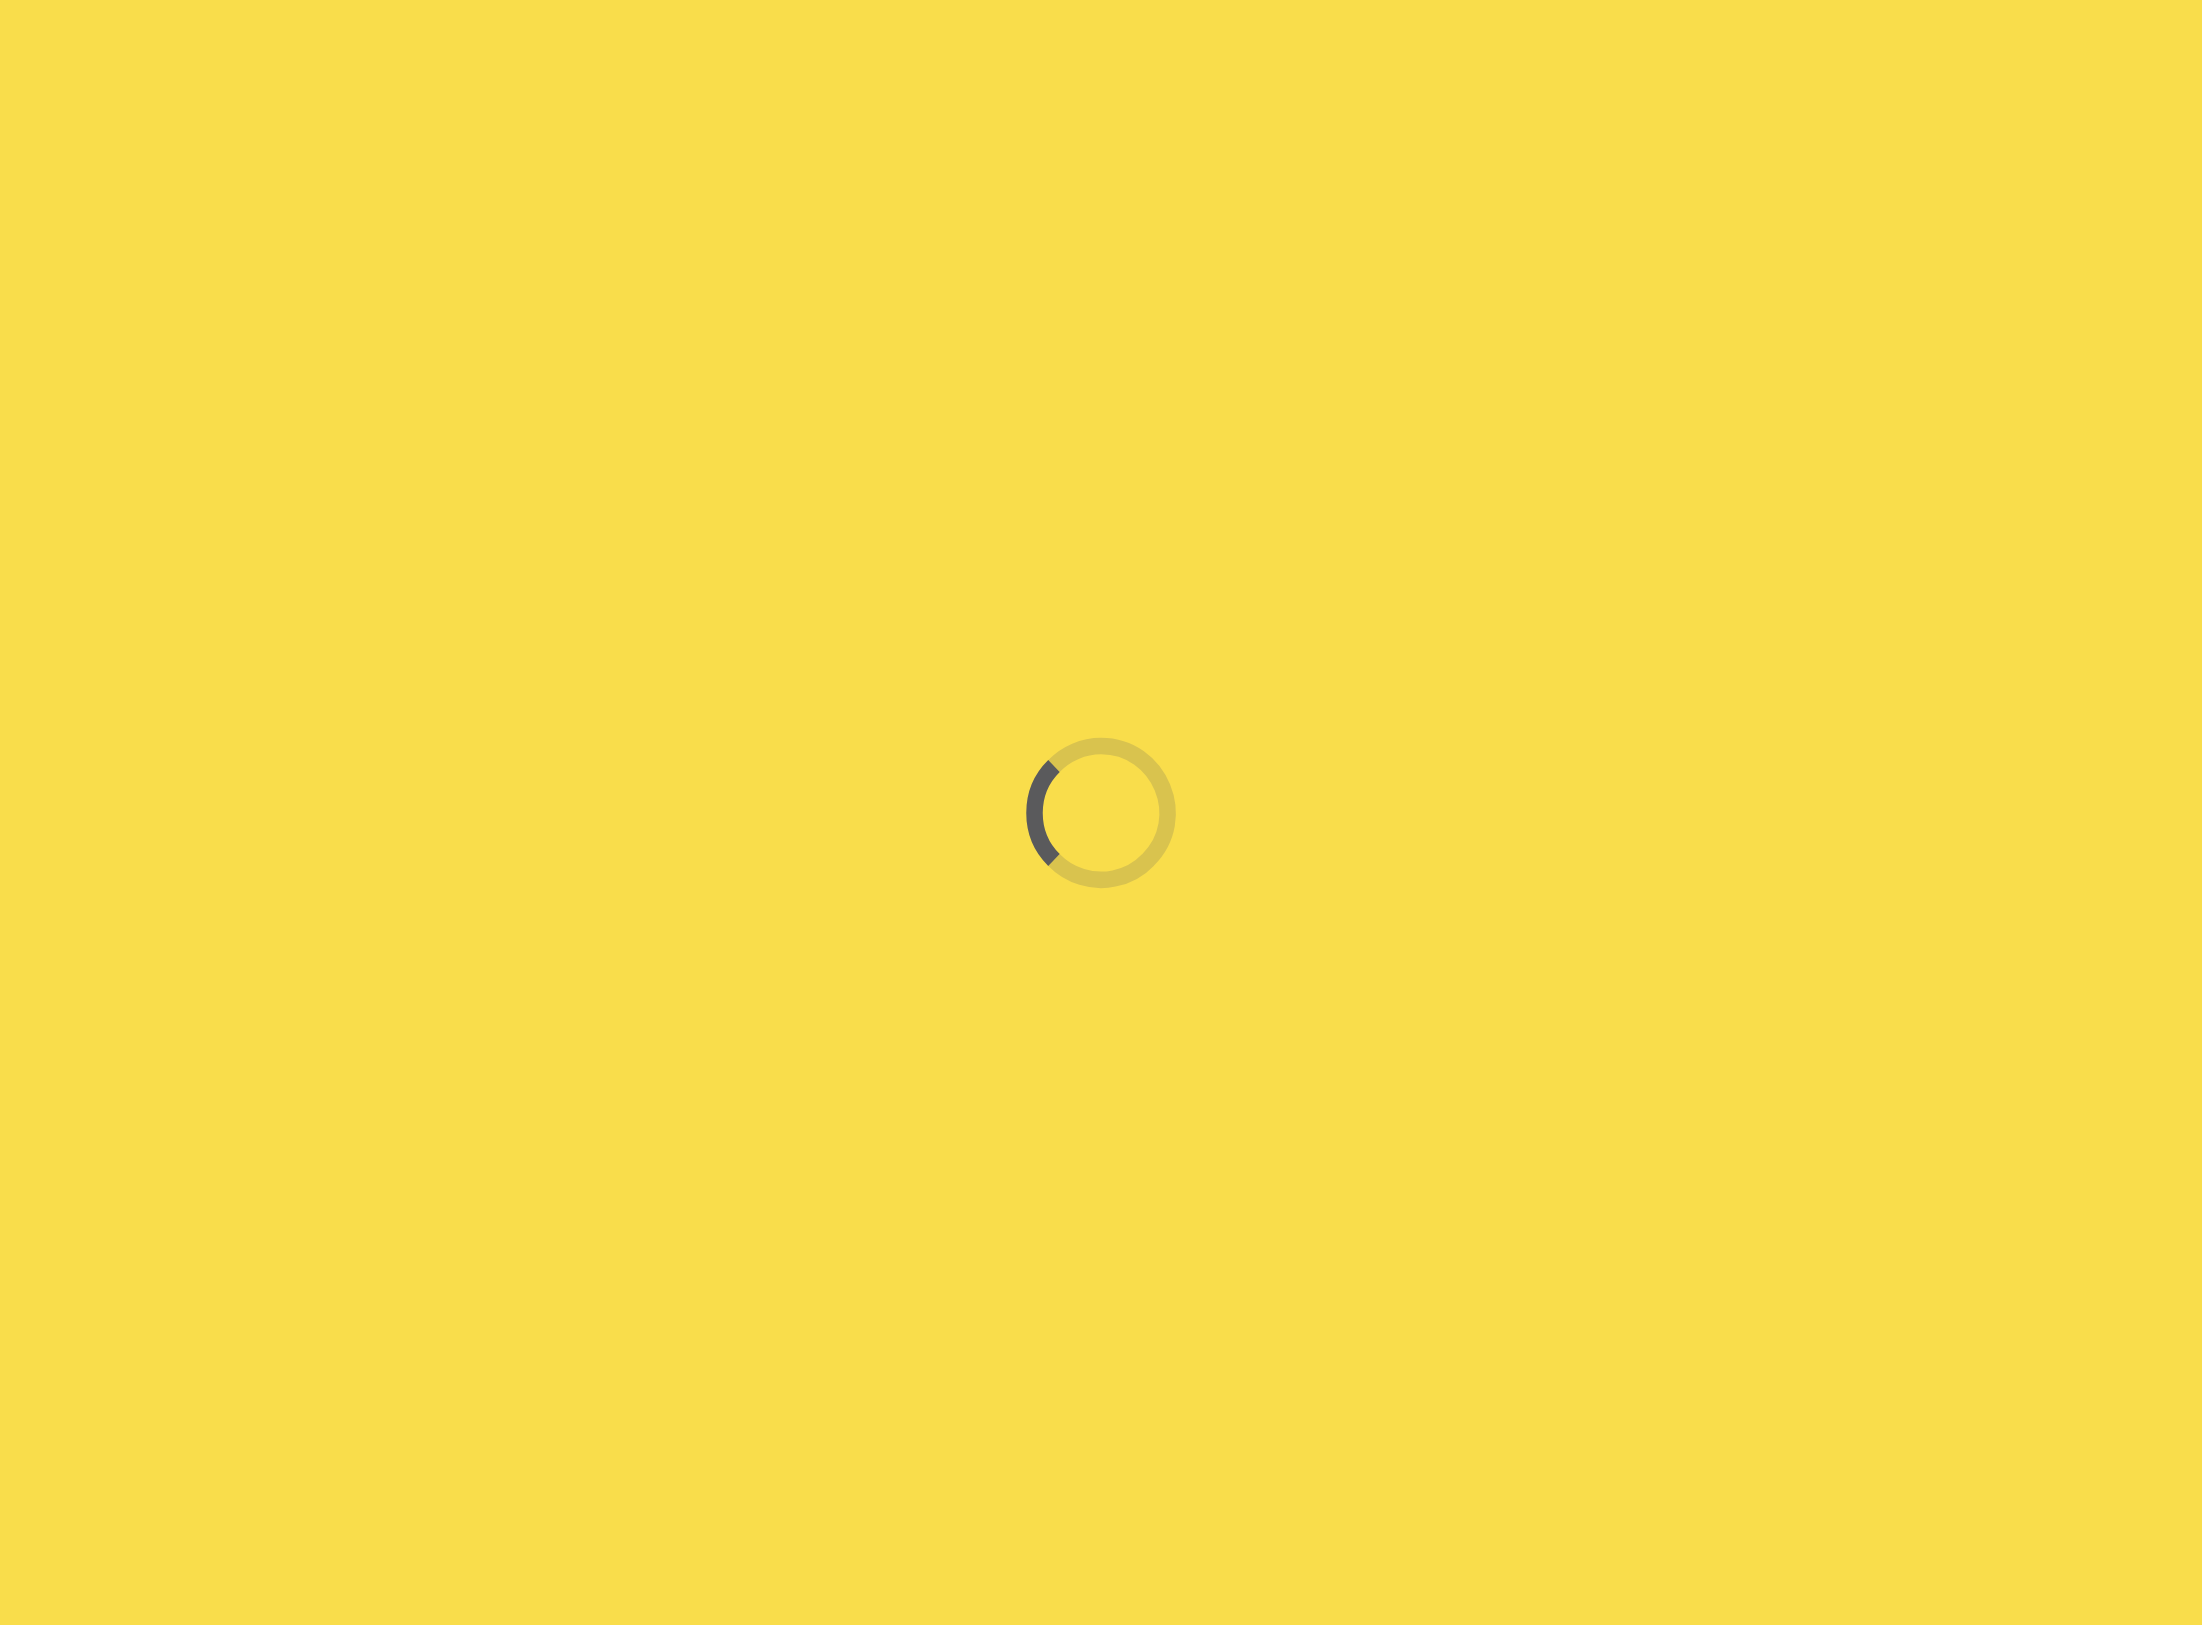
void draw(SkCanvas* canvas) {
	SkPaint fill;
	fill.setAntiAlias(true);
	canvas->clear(0xFFF9DD4B);
	fill.setStyle(SkPaint::kStroke_Style);
	fill.setStrokeWidth(16.5f);
	fill.setColor(0xFFD9C34E);
	canvas->drawPath(SkPathBuilder().moveTo(1054, 766).cubicTo(1066, 753.5f, 1083.5f, 746, 1101, 746).cubicTo(1160, 746, 1190, 818.5f, 1148, 860).cubicTo(1139, 869.5f, 1127, 876, 1114, 878.5f).cubicTo(1092.5f, 883, 1069.5f, 876, 1054, 860).detach(), fill);
	fill.setColor(0xFF5A5A5C);
	canvas->drawPath(SkPathBuilder().moveTo(1054, 860).cubicTo(1028, 834.5f, 1028, 791.5f, 1054, 766).detach(), fill);
}
